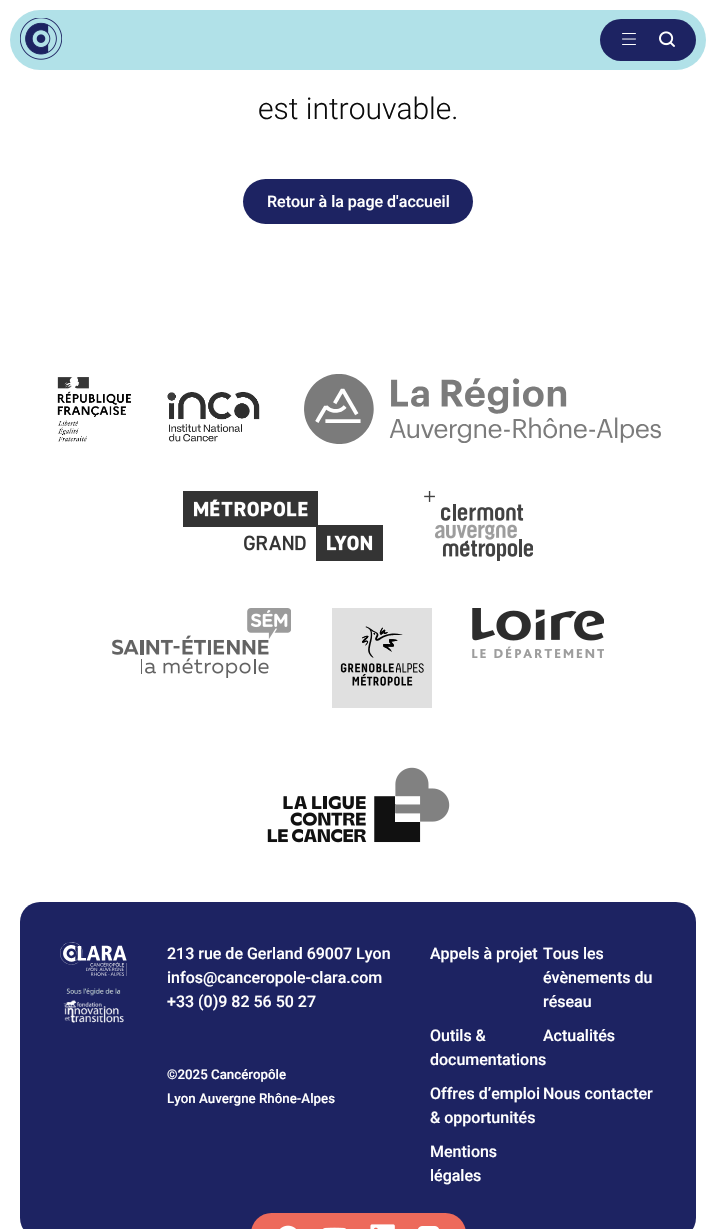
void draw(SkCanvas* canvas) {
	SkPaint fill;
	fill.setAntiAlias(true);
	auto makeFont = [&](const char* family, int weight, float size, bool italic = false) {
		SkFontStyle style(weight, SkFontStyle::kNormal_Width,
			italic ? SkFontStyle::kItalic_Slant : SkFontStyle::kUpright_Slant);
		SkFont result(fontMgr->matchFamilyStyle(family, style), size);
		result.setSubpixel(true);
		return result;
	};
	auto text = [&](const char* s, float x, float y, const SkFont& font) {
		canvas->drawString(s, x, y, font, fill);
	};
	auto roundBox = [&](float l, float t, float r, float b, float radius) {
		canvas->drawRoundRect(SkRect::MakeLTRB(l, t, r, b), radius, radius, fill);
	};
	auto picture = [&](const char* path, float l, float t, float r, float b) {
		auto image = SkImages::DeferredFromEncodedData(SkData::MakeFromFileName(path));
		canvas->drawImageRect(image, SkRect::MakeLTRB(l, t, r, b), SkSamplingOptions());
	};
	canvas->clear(0xFFFFFFFF);
	fill.setColor(0xFFB1E1E8);
	roundBox(10, 10, 706, 70, 30);
	picture("image0.png", 20, 18, 62, 60);
	fill.setColor(0xFF1D2362);
	roundBox(600, 19, 696, 61, 21);
	picture("image1.png", 622, 33, 636, 45);
	picture("image2.png", 659, 31, 675, 47);
	roundBox(243, 179, 473, 224, 22.5f);
	picture("image3.png", 57, 377, 260, 442);
	picture("image4.png", 304, 374, 661, 444);
	picture("image5.png", 183, 491, 383, 561);
	picture("image6.png", 424, 491, 533, 561);
	picture("image7.png", 112, 608, 291, 678);
	picture("image8.png", 332, 608, 432, 708);
	picture("image9.png", 472, 608, 604, 658);
	picture("image10.png", 267, 767, 450, 843);
	roundBox(20, 902, 696, 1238, 20);
	picture("image11.png", 60, 942, 127, 976);
	picture("image12.png", 63, 988, 124, 1023);
	fill.setColor(0xFFED6A5B);
	roundBox(251, 1213, 466, 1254, 25);
	picture("image13.png", 280, 1225, 296, 1229);
	picture("image14.png", 323, 1227, 346, 1229);
	picture("image15.png", 370, 1224, 395, 1229);
	picture("image16.png", 418, 1226, 439, 1229);
	auto font1 = makeFont("Roboto", 300, 30);
	fill.setColor(0xFF0C0C0C);
	text("est introuvable.", 258, 119, font1);
	auto font2 = makeFont("Roboto", 500, 16);
	fill.setColor(0xFFFFFFFF);
	text("Retour à la page d'accueil", 267, 207, font2);
	text("213 rue de Gerland 69007 Lyon", 167, 959, font2);
	text("infos@canceropole-clara.com", 167, 983, font2);
	text("+33 (0)9 82 56 50 27", 167, 1007, font2);
	auto font3 = makeFont("Roboto", 500, 13.3f);
	text("©2025 Cancéropôle", 167, 1079, font3);
	text("Lyon Auvergne Rhône-Alpes", 167, 1103, font3);
	text("Appels à projet", 430, 959, font2);
	text("Tous les", 543, 959, font2);
	text("évènements du", 543, 983, font2);
	text("réseau", 543, 1007, font2);
	text("Outils &", 430, 1041, font2);
	text("documentations", 430, 1065, font2);
	text("Actualités", 543, 1041, font2);
	text("Offres d’emploi", 430, 1099, font2);
	text("& opportunités", 430, 1123, font2);
	text("Nous contacter", 543, 1099, font2);
	text("Mentions", 430, 1157, font2);
	text("légales", 430, 1181, font2);
}
